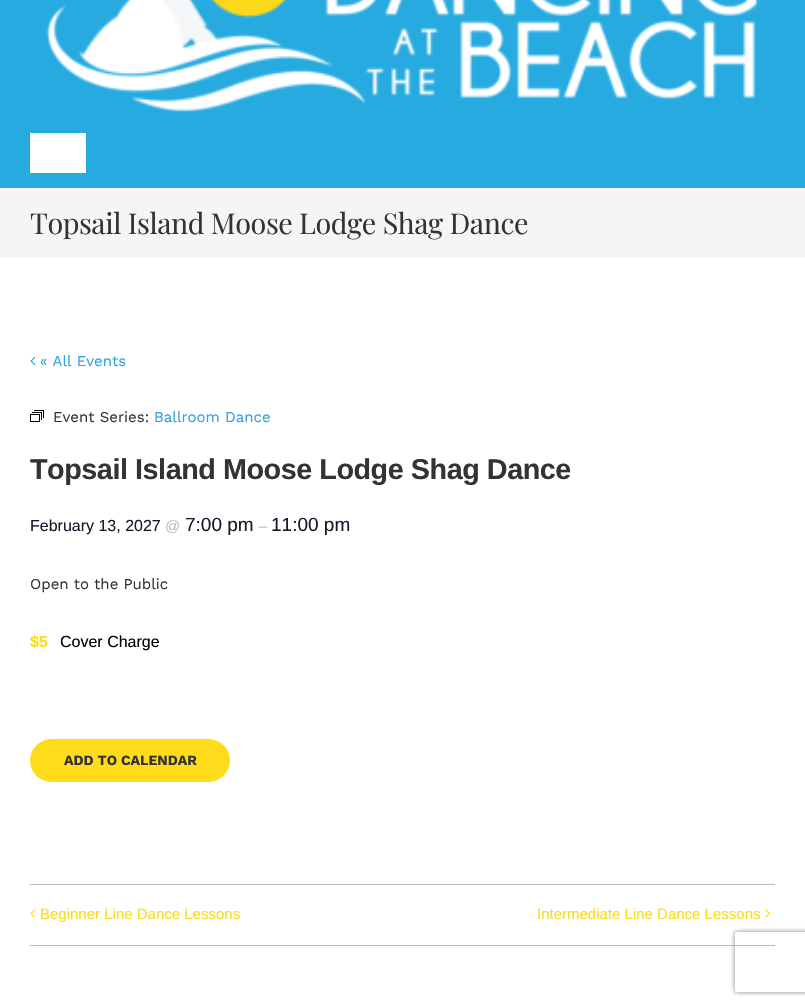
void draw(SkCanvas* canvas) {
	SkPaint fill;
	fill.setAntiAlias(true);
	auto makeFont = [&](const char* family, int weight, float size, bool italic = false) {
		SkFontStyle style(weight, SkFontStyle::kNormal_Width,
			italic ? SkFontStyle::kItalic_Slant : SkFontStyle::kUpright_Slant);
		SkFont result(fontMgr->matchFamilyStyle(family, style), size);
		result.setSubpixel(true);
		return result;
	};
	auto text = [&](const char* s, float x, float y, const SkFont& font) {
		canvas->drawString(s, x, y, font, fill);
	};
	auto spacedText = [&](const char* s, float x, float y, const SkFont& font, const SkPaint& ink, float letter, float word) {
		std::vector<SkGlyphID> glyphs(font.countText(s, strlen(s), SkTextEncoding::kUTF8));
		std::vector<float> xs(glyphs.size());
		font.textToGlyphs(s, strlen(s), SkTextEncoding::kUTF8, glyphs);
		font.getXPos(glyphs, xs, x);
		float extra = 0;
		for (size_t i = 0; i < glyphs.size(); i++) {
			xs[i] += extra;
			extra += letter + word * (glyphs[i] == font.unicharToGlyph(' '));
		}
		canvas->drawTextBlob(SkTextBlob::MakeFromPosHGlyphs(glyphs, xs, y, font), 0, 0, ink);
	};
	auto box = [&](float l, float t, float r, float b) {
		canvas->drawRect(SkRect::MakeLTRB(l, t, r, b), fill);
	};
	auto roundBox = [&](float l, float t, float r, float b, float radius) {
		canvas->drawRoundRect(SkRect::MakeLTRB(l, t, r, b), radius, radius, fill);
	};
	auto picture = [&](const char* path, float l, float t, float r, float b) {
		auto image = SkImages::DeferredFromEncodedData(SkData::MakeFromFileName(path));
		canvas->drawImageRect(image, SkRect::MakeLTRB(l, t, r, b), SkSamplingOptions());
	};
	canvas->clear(0xFFFFFFFF);
	fill.setColor(0xFF27AAE0);
	box(0, 0, 805, 188);
	picture("image0.png", 46, 0, 759, 113);
	fill.setColor(0xFFFFFFFF);
	box(30, 133, 86, 173);
	fill.setColor(0xFFF5F5F5);
	box(0, 188, 805, 258);
	picture("image1.png", 30, 356, 36, 366);
	picture("image2.png", 30, 410, 44, 422);
	fill.setColor(0xFFFEDB1B);
	roundBox(30, 739, 230, 782, 21.5f);
	fill.setColor(0xFFBFBAB5);
	box(30, 884, 775, 885);
	box(30, 945, 775, 946);
	picture("image3.png", 30, 909, 36, 918);
	picture("image4.png", 765, 909, 770, 918);
	canvas->save();
	canvas->clipPath(SkPathBuilder(SkPathFillType::kEvenOdd).moveTo(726, 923).lineTo(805, 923).lineTo(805, 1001).lineTo(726, 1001).close().moveTo(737, 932).lineTo(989, 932).cubicTo(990, 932, 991, 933, 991, 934).lineTo(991, 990).cubicTo(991, 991, 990, 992, 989, 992).lineTo(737, 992).cubicTo(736, 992, 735, 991, 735, 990).lineTo(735, 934).cubicTo(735, 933, 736, 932, 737, 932).close().detach(), true);
	fill.setColor(0xFF808080);
	fill.setMaskFilter(SkMaskFilter::MakeBlur(kNormal_SkBlurStyle, 2.5f));
	canvas->drawRoundRect(SkRect::MakeLTRB(735, 932, 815, 992), 2, 2, fill);
	fill.setMaskFilter(nullptr);
	canvas->restore();
	auto font1 = makeFont("Playfair Display", 400, 28.75f);
	fill.setColor(0xFF333333);
	spacedText("Topsail Island Moose Lodge Shag Dance", 30, 234, font1, fill, -0.45f, 0);
	auto font2 = makeFont("Work Sans", 400, 15);
	fill.setColor(0xFF2FA1DB);
	text("« All Events", 40, 366, font2);
	fill.setColor(0xFF333333);
	text("Event Series:", 53, 422, font2);
	fill.setColor(0xFF2FA1DB);
	text("Ballroom Dance", 154, 422, font2);
	auto font3 = makeFont("Liberation Sans", 700, 28.75f);
	fill.setColor(0xFF333333);
	spacedText("Topsail Island Moose Lodge Shag Dance", 30, 479, font3, fill, -0.45f, 0);
	auto font4 = makeFont("Liberation Sans", 400, 16);
	fill.setColor(0xFF141827);
	text("February 13, 2027", 30, 531, font4);
	auto font5 = makeFont("Liberation Sans", 400, 15);
	fill.setColor(0xFFB9BEC2);
	text("@", 165, 531, font5);
	auto font6 = makeFont("Liberation Sans", 400, 19);
	fill.setColor(0xFF141827);
	text("7:00 pm", 185, 531, font6);
	fill.setColor(0xFFB9BEC2);
	text("–", 259, 531, font5);
	fill.setColor(0xFF141827);
	text("11:00 pm", 271, 531, font6);
	fill.setColor(0xFF333333);
	text("Open to the Public", 30, 589, font2);
	auto font7 = makeFont("Liberation Sans", 700, 16);
	fill.setColor(0xFFFEDB1B);
	text("$5", 30, 647, font7);
	fill.setColor(0xFF000000);
	text("Cover Charge", 60, 647, font4);
	auto font8 = makeFont("Work Sans", 700, 14);
	fill.setColor(0xFF333333);
	text("ADD TO CALENDAR", 64, 765, font8);
	fill.setColor(0xFFFEDB1B);
	text("Beginner Line Dance Lessons", 40, 919, font5);
	text("Intermediate Line Dance Lessons", 537, 919, font5);
}
